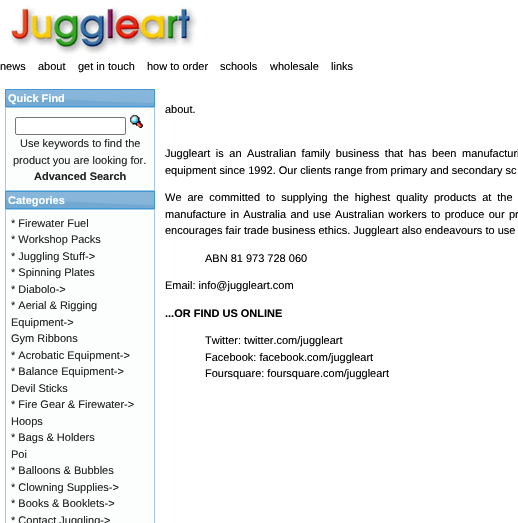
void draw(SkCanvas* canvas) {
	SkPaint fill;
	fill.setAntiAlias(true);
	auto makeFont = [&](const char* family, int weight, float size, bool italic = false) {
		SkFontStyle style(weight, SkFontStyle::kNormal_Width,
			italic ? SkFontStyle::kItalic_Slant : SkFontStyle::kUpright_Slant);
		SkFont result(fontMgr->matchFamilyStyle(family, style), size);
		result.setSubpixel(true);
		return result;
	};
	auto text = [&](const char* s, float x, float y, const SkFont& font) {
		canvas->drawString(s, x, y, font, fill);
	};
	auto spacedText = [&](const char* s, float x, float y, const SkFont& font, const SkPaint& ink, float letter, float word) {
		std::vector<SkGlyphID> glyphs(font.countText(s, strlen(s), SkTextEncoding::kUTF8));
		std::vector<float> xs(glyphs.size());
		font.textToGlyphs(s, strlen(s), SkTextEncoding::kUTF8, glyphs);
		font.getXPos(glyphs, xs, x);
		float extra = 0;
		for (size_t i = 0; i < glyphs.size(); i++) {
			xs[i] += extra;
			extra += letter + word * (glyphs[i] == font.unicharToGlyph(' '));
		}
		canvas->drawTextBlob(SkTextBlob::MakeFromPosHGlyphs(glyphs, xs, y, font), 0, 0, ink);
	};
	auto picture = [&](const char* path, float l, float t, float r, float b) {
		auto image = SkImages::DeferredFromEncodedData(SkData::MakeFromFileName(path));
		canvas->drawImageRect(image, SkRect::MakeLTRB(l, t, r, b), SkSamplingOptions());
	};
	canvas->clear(0xFFFFFFFF);
	picture("image0.png", 5, 5, 198, 55);
	picture("image1.png", 6, 90, 154, 106);
	fill.setStyle(SkPaint::kStroke_Style);
	fill.setStrokeWidth(1);
	fill.setColor(0xFF4297D7);
	canvas->drawRect(SkRect::MakeLTRB(5.5f, 89.5f, 154.5f, 106.5f), fill);
	fill.setStyle(SkPaint::kFill_Style);
	fill.setColor(0xFFFCFDFD);
	canvas->drawRect(SkRect::MakeLTRB(5.5f, 107.5f, 154.5f, 190.5f), fill);
	fill.setStyle(SkPaint::kStroke_Style);
	fill.setColor(0xFFA6C9E2);
	canvas->drawRect(SkRect::MakeLTRB(5.5f, 107.5f, 154.5f, 190.5f), fill);
	fill.setStyle(SkPaint::kFill_Style);
	fill.setColor(0xFFFFFFFF);
	canvas->drawRoundRect(SkRect::MakeLTRB(15.5f, 117.5f, 125.5f, 134.5f), 1.5f, 1.5f, fill);
	fill.setStyle(SkPaint::kStroke_Style);
	fill.setColor(0xFF767676);
	canvas->drawRoundRect(SkRect::MakeLTRB(15.5f, 117.5f, 125.5f, 134.5f), 1.5f, 1.5f, fill);
	picture("image2.png", 130, 115, 143, 128);
	picture("image1.png", 6, 192, 154, 208);
	fill.setColor(0xFF4297D7);
	canvas->drawRect(SkRect::MakeLTRB(5.5f, 191.5f, 154.5f, 208.5f), fill);
	fill.setStyle(SkPaint::kFill_Style);
	fill.setColor(0xFFFCFDFD);
	canvas->drawRect(SkRect::MakeLTRB(5.5f, 209.5f, 154.5f, 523.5f), fill);
	fill.setStyle(SkPaint::kStroke_Style);
	fill.setColor(0xFFA6C9E2);
	canvas->drawRect(SkRect::MakeLTRB(5.5f, 209.5f, 154.5f, 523.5f), fill);
	auto font1 = makeFont("Liberation Sans", 400, 11);
	fill.setStyle(SkPaint::kFill_Style);
	fill.setColor(0xFF000000);
	text("news", 0, 70, font1);
	text("about", 38, 70, font1);
	text("get in touch", 78, 70, font1);
	text("how to order", 147, 70, font1);
	text("schools", 220, 70, font1);
	text("wholesale", 270, 70, font1);
	text("links", 331, 70, font1);
	auto font2 = makeFont("Liberation Sans", 700, 11);
	fill.setColor(0xFFFFFFFF);
	text("Quick Find", 8, 102, font2);
	fill.setColor(0xFF222222);
	text("Use keywords to find the", 20, 147, font1);
	text("product you are looking for.", 13, 164, font1);
	text("Advanced Search", 34, 180, font2);
	fill.setColor(0xFFFFFFFF);
	text("Categories", 8, 204, font2);
	fill.setColor(0xFF222222);
	text("* Firewater Fuel", 11, 227, font1);
	text("* Workshop Packs", 11, 243, font1);
	text("* Juggling Stuff->", 11, 260, font1);
	text("* Spinning Plates", 11, 276, font1);
	text("* Diabolo->", 11, 293, font1);
	text("* Aerial & Rigging", 11, 309, font1);
	text("Equipment->", 11, 326, font1);
	text("Gym Ribbons", 11, 342, font1);
	text("* Acrobatic Equipment->", 11, 359, font1);
	text("* Balance Equipment->", 11, 375, font1);
	text("Devil Sticks", 11, 392, font1);
	text("* Fire Gear & Firewater->", 11, 408, font1);
	text("Hoops", 11, 425, font1);
	text("* Bags & Holders", 11, 441, font1);
	text("Poi", 11, 458, font1);
	text("* Balloons & Bubbles", 11, 474, font1);
	text("* Clowning Supplies->", 11, 491, font1);
	text("* Books & Booklets->", 11, 507, font1);
	text("* Contact Juggling->", 11, 524, font1);
	fill.setColor(0xFF000000);
	text("about.", 165, 113, font1);
	spacedText("Juggleart is an Australian family business that has been manufacturi", 165, 157, font1, fill, 0, 2.5f);
	text("equipment since 1992. Our clients range from primary and secondary sc", 165, 174, font1);
	spacedText("We are committed to supplying the highest quality products at the", 165, 201, font1, fill, 0, 2.9f);
	spacedText("manufacture in Australia and use Australian workers to produce our pr", 165, 218, font1, fill, 0, 1.25f);
	text("encourages fair trade business ethics. Juggleart also endeavours to use", 165, 234, font1);
	text("ABN 81 973 728 060", 205, 262, font1);
	text("Email: info@juggleart.com", 165, 289, font1);
	text("...OR FIND US ONLINE", 165, 317, font2);
	text("Twitter: twitter.com/juggleart", 205, 344, font1);
	text("Facebook: facebook.com/juggleart", 205, 361, font1);
	text("Foursquare: foursquare.com/juggleart", 205, 377, font1);
}
